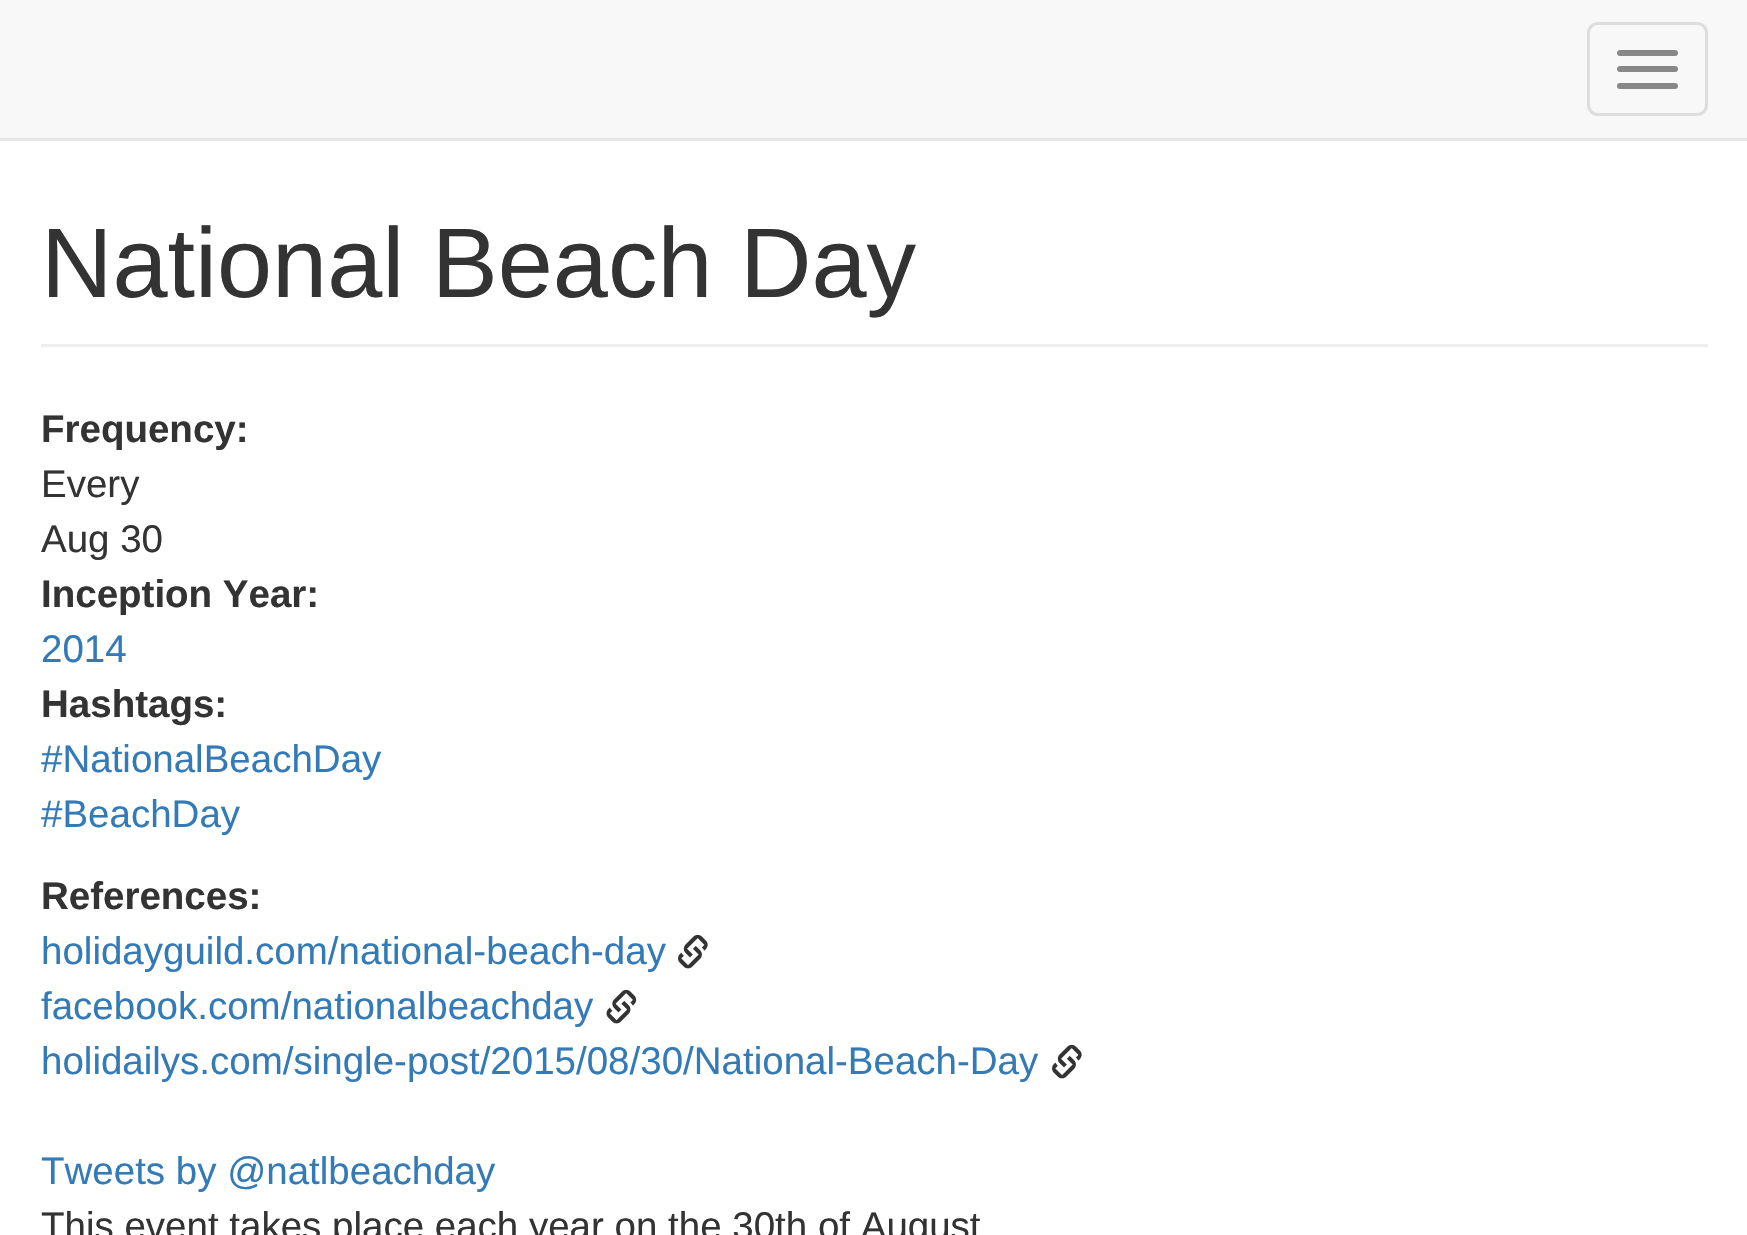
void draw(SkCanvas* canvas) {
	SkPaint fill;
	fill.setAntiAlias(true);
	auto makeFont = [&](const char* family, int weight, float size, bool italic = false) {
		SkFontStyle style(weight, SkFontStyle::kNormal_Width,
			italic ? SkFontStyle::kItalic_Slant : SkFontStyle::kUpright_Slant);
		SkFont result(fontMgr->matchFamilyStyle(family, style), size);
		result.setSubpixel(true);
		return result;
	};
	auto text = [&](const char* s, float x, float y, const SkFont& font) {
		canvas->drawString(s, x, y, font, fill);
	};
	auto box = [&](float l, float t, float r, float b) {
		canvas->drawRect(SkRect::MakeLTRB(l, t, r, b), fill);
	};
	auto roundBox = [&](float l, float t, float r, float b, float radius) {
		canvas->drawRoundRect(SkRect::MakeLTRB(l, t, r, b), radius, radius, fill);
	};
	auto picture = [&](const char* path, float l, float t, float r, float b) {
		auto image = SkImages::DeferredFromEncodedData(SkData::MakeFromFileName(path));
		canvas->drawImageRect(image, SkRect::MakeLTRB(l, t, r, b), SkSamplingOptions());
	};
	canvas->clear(0xFFFFFFFF);
	fill.setColor(0xFFF8F8F8);
	box(0, 0, 1747, 138);
	fill.setColor(0xFFE7E7E7);
	box(0, 138, 1747, 141);
	fill.setStyle(SkPaint::kStroke_Style);
	fill.setStrokeWidth(3);
	fill.setColor(0xFFDDDDDD);
	canvas->drawRoundRect(SkRect::MakeLTRB(1588.5f, 23.5f, 1706.5f, 114.5f), 9.5f, 9.5f, fill);
	fill.setStyle(SkPaint::kFill_Style);
	fill.setColor(0xFF888888);
	roundBox(1617, 50, 1678, 56, 3);
	roundBox(1617, 66, 1678, 72, 3);
	roundBox(1617, 83, 1678, 89, 3);
	fill.setColor(0xFFEEEEEE);
	box(41, 344, 1708, 347);
	picture("image0.png", 678, 934, 708, 969);
	picture("image1.png", 606, 989, 637, 1024);
	picture("image0.png", 1052, 1044, 1082, 1079);
	auto font1 = makeFont("Liberation Sans", 400, 99);
	fill.setColor(0xFF333333);
	text("National Beach Day", 41, 297, font1);
	auto font2 = makeFont("Liberation Sans", 700, 38.5f);
	text("Frequency:", 41, 442, font2);
	auto font3 = makeFont("Liberation Sans", 400, 38.5f);
	text("Every", 41, 497, font3);
	text("Aug 30", 41, 552, font3);
	text("Inception Year:", 41, 607, font2);
	fill.setColor(0xFF337AB7);
	text("2014", 41, 662, font3);
	fill.setColor(0xFF333333);
	text("Hashtags:", 41, 717, font2);
	fill.setColor(0xFF337AB7);
	text("#NationalBeachDay", 41, 772, font3);
	text("#BeachDay", 41, 827, font3);
	fill.setColor(0xFF333333);
	text("References:", 41, 909, font2);
	fill.setColor(0xFF337AB7);
	text("holidayguild.com/national-beach-day", 41, 964, font3);
	text("facebook.com/nationalbeachday", 41, 1019, font3);
	text("holidailys.com/single-post/2015/08/30/National-Beach-Day", 41, 1074, font3);
	text("Tweets by @natlbeachday", 41, 1184, font3);
	fill.setColor(0xFF333333);
	text("This event takes place each year on the 30th of August", 41, 1239, font3);
}
